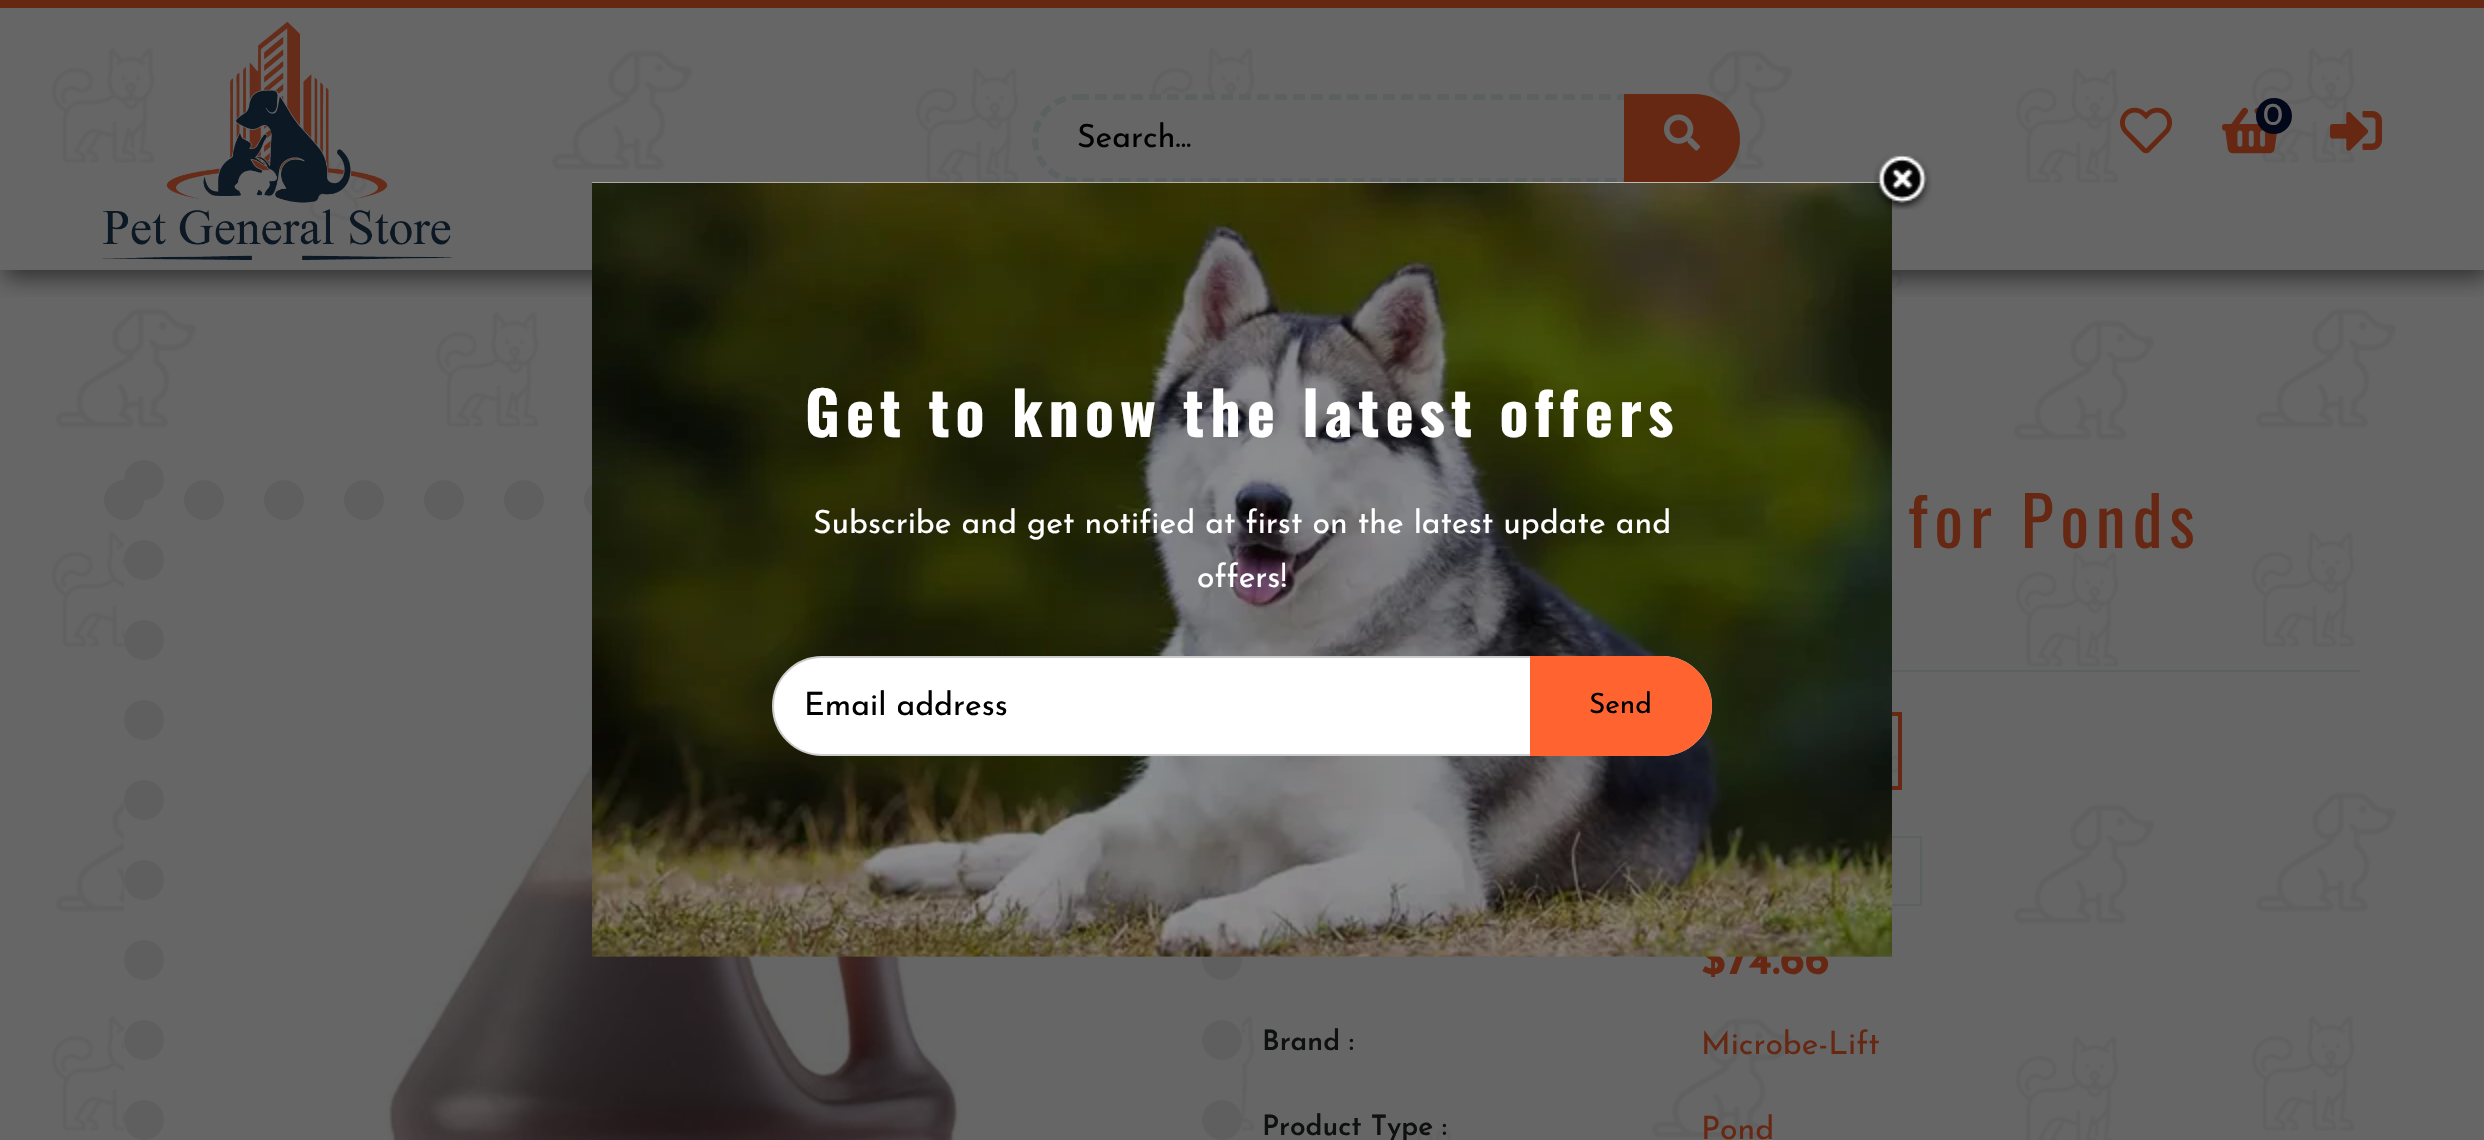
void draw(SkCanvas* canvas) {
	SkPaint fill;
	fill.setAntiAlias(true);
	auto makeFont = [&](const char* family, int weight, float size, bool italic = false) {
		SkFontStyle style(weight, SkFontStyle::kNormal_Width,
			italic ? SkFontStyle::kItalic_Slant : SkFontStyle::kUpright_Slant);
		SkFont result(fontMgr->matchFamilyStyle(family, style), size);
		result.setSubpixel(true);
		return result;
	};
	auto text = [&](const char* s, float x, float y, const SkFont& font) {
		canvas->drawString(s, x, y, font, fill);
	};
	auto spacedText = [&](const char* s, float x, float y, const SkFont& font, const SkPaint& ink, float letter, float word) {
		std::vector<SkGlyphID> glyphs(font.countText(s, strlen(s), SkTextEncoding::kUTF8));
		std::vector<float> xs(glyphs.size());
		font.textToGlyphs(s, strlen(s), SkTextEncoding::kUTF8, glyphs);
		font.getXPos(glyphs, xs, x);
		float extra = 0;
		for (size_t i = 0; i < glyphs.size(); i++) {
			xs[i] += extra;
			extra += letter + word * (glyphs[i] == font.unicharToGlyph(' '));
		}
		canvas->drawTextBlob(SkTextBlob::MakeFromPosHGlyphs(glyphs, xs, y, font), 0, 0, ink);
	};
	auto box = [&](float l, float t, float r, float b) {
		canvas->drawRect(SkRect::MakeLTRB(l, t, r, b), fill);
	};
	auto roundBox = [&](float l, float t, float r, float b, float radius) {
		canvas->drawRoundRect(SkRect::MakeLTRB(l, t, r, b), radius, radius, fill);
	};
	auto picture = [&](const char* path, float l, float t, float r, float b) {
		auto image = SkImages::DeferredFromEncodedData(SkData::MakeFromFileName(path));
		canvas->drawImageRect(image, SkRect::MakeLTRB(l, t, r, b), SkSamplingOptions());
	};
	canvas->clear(0xFF666666);
	picture("image0.png", 51, 48, 2396, 1140);
	canvas->save();
	canvas->clipRect(SkRect::MakeLTRB(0, 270, 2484, 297));
	fill.setColor(0x85000000);
	fill.setMaskFilter(SkMaskFilter::MakeBlur(kNormal_SkBlurStyle, 11));
	canvas->drawRect(SkRect::MakeLTRB(4, 8, 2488, 278), fill);
	fill.setMaskFilter(nullptr);
	canvas->restore();
	fill.setColor(0xFF662813);
	box(0, 0, 2484, 8);
	picture("image1.png", 102, 22, 452, 260);
	picture("image2.png", 2120, 107, 2173, 154);
	picture("image3.png", 2222, 107, 2277, 154);
	fill.setColor(0xFF020819);
	canvas->drawCircle(2274, 116, 18, fill);
	picture("image4.png", 2330, 111, 2382, 151);
	fill.setColor(0xFF666666);
	roundBox(1032, 94, 1740, 184, 45);
	fill.setStyle(SkPaint::kStroke_Style);
	fill.setStrokeWidth(6);
	fill.setColor(0xFF5B6061);
	fill.setPathEffect(SkDashPathEffect::Make({{12, 6}}, 0));
	canvas->drawPath(SkPathBuilder().moveTo(1077, 97).lineTo(1695, 97).cubicTo(1718, 97, 1737, 116, 1737, 139).cubicTo(1737, 162, 1718, 181, 1695, 181).lineTo(1077, 181).cubicTo(1054, 181, 1035, 162, 1035, 139).cubicTo(1035, 116, 1054, 97, 1077, 97).close().detach(), fill);
	fill.setPathEffect(nullptr);
	fill.setStyle(SkPaint::kFill_Style);
	fill.setColor(0xFF662813);
	canvas->drawPath(SkPathBuilder().moveTo(1624, 94).lineTo(1695, 94).cubicTo(1720, 94, 1740, 114, 1740, 139).cubicTo(1740, 164, 1720, 184, 1695, 184).lineTo(1624, 184).close().detach(), fill);
	picture("image5.png", 1664, 114, 1700, 151);
	fill.setColor(0xFFFFFFFF);
	box(592, 182, 1892, 183);
	fill.setColor(0xFF666666);
	box(124, 532, 1242, 1140);
	fill.setStyle(SkPaint::kStroke_Style);
	fill.setStrokeWidth(40);
	fill.setStrokeCap(SkPaint::kRound_Cap);
	fill.setColor(0xFF5F5F5F);
	fill.setPathEffect(SkDashPathEffect::Make({{0, 80}}, 0));
	canvas->drawPath(SkPathBuilder().moveTo(124, 500).lineTo(1242, 500).detach(), fill);
	fill.setPathEffect(nullptr);
	fill.setPathEffect(SkDashPathEffect::Make({{0, 80}}, 0));
	canvas->drawPath(SkPathBuilder().moveTo(1222, 480).lineTo(1222, 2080).detach(), fill);
	fill.setPathEffect(nullptr);
	fill.setPathEffect(SkDashPathEffect::Make({{0, 80}}, 0));
	canvas->drawPath(SkPathBuilder().moveTo(144, 480).lineTo(144, 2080).detach(), fill);
	fill.setPathEffect(nullptr);
	picture("image8.png", 386, 670, 962, 1140);
	fill.setStyle(SkPaint::kFill_Style);
	fill.setColor(0xFF5B6061);
	box(1892, 670, 2360, 672);
	fill.setStyle(SkPaint::kStroke_Style);
	fill.setStrokeWidth(4);
	fill.setStrokeCap(SkPaint::kButt_Cap);
	fill.setColor(0xFF662813);
	canvas->drawRect(SkRect::MakeLTRB(1704, 714, 1900, 788), fill);
	fill.setStrokeWidth(2);
	fill.setColor(0xFF5B6061);
	canvas->drawRect(SkRect::MakeLTRB(1853, 837, 1921, 905), fill);
	auto font1 = makeFont("Josefin Sans", 400, 32);
	fill.setStyle(SkPaint::kFill_Style);
	fill.setColor(0xFF666666);
	text("0", 2263, 125, font1);
	fill.setColor(0xFF000000);
	text("Search...", 1077, 147, font1);
	auto font2 = makeFont("Oswald", 400, 68);
	fill.setColor(0xFF662813);
	spacedText("for Ponds", 1908, 548, font2, fill, 6.75f, 0);
	auto font3 = makeFont("Josefin Sans", 700, 44);
	text("$74.66", 1701, 974, font3);
	picture("image6.png", 592, 182, 1892, 957);
	picture("image7.png", 1873, 154, 1932, 210);
	fill.setColor(0xFFFFFFFF);
	canvas->drawRoundRect(SkRect::MakeLTRB(773, 657, 1711, 755), 49, 49, fill);
	fill.setStyle(SkPaint::kStroke_Style);
	fill.setColor(0xFFCCCCCC);
	canvas->drawRoundRect(SkRect::MakeLTRB(773, 657, 1711, 755), 49, 49, fill);
	fill.setStyle(SkPaint::kFill_Style);
	fill.setColor(0xFFFF6330);
	canvas->drawPath(SkPathBuilder().moveTo(1530, 656).lineTo(1662, 656).cubicTo(1689.5f, 656, 1712, 678.5f, 1712, 706).cubicTo(1712, 733.5f, 1689.5f, 756, 1662, 756).lineTo(1530, 756).close().detach(), fill);
	auto font4 = makeFont("Josefin Sans", 400, 28);
	fill.setColor(0xFF000000);
	text("Send", 1589, 713, font4);
	text("Email address", 804, 715, font1);
	fill.setColor(0xFFFFFFFF);
	text("offers!", 1197, 587, font1);
	text("Subscribe and get notified at first on the latest update and", 813, 533, font1);
	auto font5 = makeFont("Oswald", 700, 60);
	spacedText("Get to know the latest offers", 805, 437, font5, fill, 6, 0);
	auto font6 = makeFont("Josefin Sans", 600, 28);
	fill.setColor(0xFF0F1010);
	text("Brand :", 1262, 1050, font6);
	fill.setColor(0xFF662813);
	text("Microbe-Lift", 1701, 1054, font1);
	fill.setColor(0xFF0F1010);
	text("Product Type :", 1262, 1135, font6);
	fill.setColor(0xFF662813);
	text("Pond", 1701, 1139, font1);
}
